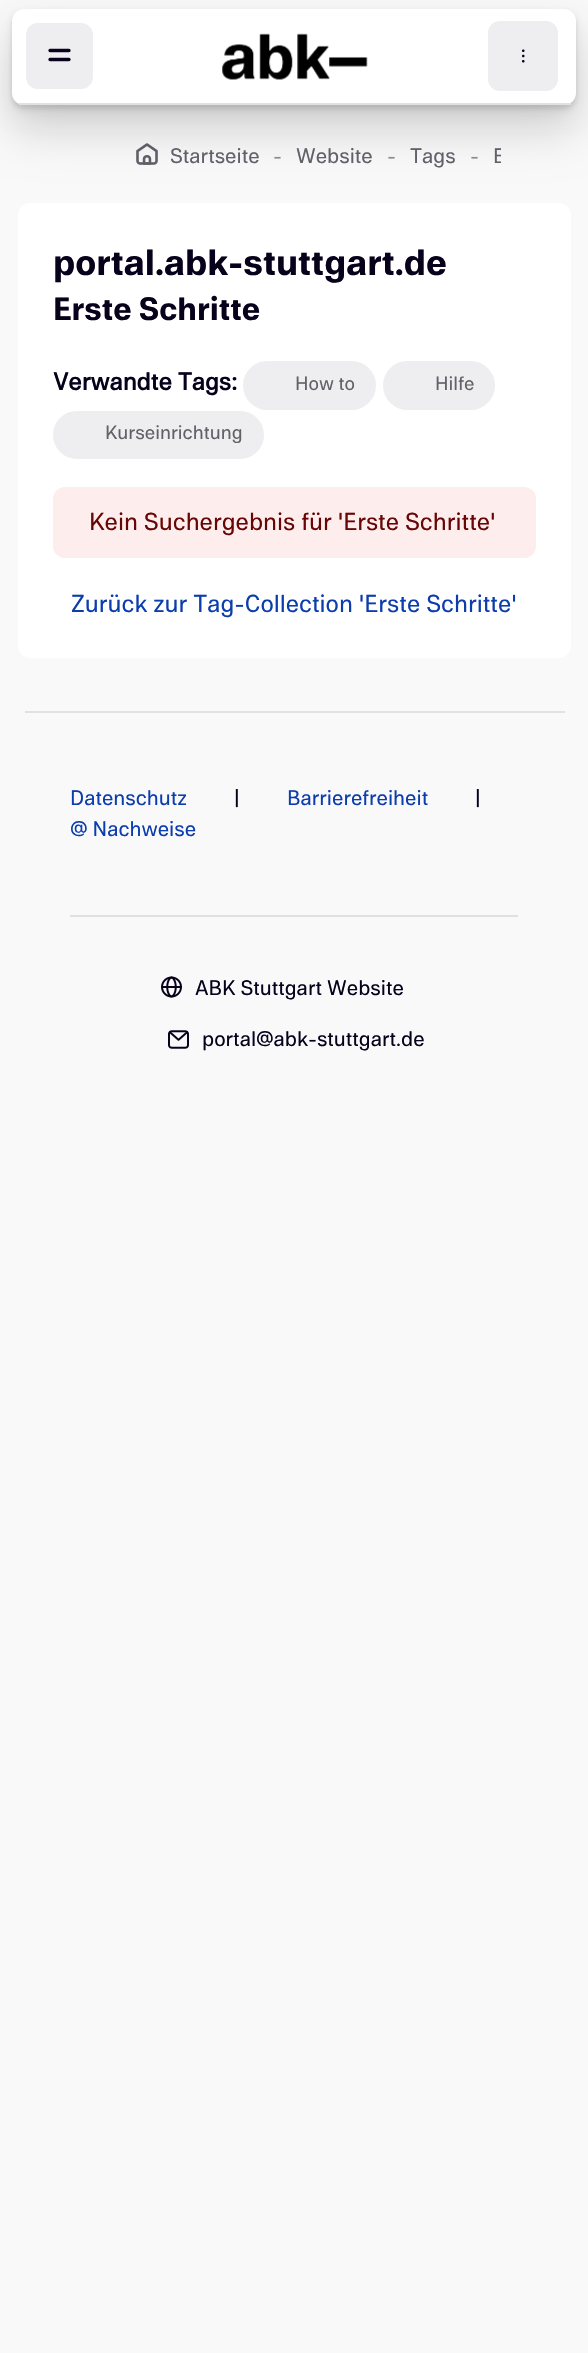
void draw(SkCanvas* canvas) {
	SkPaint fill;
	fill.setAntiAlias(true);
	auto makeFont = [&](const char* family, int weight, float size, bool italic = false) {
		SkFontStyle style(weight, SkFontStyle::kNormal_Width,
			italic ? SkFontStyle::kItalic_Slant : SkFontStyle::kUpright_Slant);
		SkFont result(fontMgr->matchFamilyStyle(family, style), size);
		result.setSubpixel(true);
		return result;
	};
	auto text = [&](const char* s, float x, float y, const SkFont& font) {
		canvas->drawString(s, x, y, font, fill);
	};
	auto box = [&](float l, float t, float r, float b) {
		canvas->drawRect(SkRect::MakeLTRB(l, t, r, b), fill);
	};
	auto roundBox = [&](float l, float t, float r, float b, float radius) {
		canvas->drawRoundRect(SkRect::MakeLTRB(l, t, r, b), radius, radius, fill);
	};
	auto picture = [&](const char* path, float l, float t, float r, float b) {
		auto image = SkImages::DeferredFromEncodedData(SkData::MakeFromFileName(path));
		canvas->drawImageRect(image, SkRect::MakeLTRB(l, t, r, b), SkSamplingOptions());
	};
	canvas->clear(0xFFF9F9FA);
	fill.setColor(0x1F000000);
	fill.setMaskFilter(SkMaskFilter::MakeBlur(kNormal_SkBlurStyle, 2.5f));
	canvas->drawRoundRect(SkRect::MakeLTRB(12, 12, 576, 109), 12, 12, fill);
	fill.setMaskFilter(nullptr);
	fill.setColor(0x0D000000);
	fill.setMaskFilter(SkMaskFilter::MakeBlur(kNormal_SkBlurStyle, 9));
	canvas->drawRoundRect(SkRect::MakeLTRB(12, 18, 576, 114), 12, 12, fill);
	fill.setMaskFilter(nullptr);
	picture("image2.png", 136, 143, 158, 165);
	fill.setColor(0x26000000);
	fill.setMaskFilter(SkMaskFilter::MakeBlur(kNormal_SkBlurStyle, 22));
	canvas->drawRoundRect(SkRect::MakeLTRB(12, 35, 576, 131), 12, 12, fill);
	fill.setMaskFilter(nullptr);
	fill.setColor(0xFFFFFFFF);
	roundBox(12, 9, 576, 105, 12);
	fill.setColor(0xFFE1E0E4);
	box(19, 103, 571, 105);
	fill.setColor(0xFFEEEDEF);
	roundBox(26, 23, 93, 89, 12);
	fill.setStyle(SkPaint::kStroke_Style);
	fill.setStrokeWidth(3.3f);
	fill.setStrokeCap(SkPaint::kRound_Cap);
	fill.setStrokeJoin(SkPaint::kRound_Join);
	fill.setColor(0xFF07011B);
	canvas->drawPath(SkPathBuilder().moveTo(50, 50.5f).lineTo(69, 50.5f).moveTo(50, 59.5f).lineTo(69, 59.5f).detach(), fill);
	picture("image0.png", 222, 33, 368, 80);
	fill.setStyle(SkPaint::kFill_Style);
	fill.setColor(0xFFEEEDEF);
	roundBox(488, 21, 558, 91, 12);
	picture("image1.png", 522, 49, 525, 63);
	fill.setColor(0xFFFFFFFF);
	roundBox(18, 203, 571, 658, 12);
	fill.setColor(0xFFEEEDEF);
	roundBox(243, 361, 376, 410, 24.5f);
	roundBox(383, 361, 495, 410, 24.5f);
	roundBox(53, 411, 264, 459, 24);
	fill.setColor(0xFFFEEDED);
	roundBox(53, 487, 536, 558, 12);
	fill.setColor(0xFFE1E0E4);
	box(25, 711, 565, 713);
	box(70, 915, 518, 917);
	picture("image3.png", 161, 976, 182, 998);
	picture("image4.png", 168, 1030, 189, 1049);
	auto font1 = makeFont("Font", 400, 21);
	fill.setColor(0xFF626068);
	text("Startseite", 170, 163, font1);
	fill.setColor(0xFF8C8A94);
	text("-", 273, 163, font1);
	fill.setColor(0xFF626068);
	text("Website", 296, 163, font1);
	fill.setColor(0xFF8C8A94);
	text("-", 387, 163, font1);
	fill.setColor(0xFF626068);
	text("Tags", 410, 163, font1);
	fill.setColor(0xFF8C8A94);
	text("-", 470, 163, font1);
	canvas->save();
	canvas->clipRect(SkRect::MakeLTRB(494, 140, 501, 172));
	fill.setColor(0xFF626068);
	text("E", 493, 163, font1);
	canvas->restore();
	auto font2 = makeFont("Font", 700, 36.4f);
	fill.setColor(0xFF07011B);
	text("portal.abk-stuttgart.de", 53, 275, font2);
	auto font3 = makeFont("Font", 700, 32.25f);
	text("Erste Schritte", 53, 320, font3);
	auto font4 = makeFont("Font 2", 700, 24.5f);
	text("Verwandte Tags:", 53, 390, font4);
	auto font5 = makeFont("Font", 400, 19.25f);
	fill.setColor(0xFF626068);
	text("How to", 295, 390, font5);
	text("Hilfe", 435, 390, font5);
	text("Kurseinrichtung", 105, 439, font5);
	auto font6 = makeFont("Font", 400, 24.5f);
	fill.setColor(0xFF680505);
	text("Kein Suchergebnis für 'Erste Schritte'", 89, 530, font6);
	fill.setColor(0xFF0C3DAD);
	text("Zurück zur Tag-Collection 'Erste Schritte'", 71, 612, font6);
	text("Datenschutz", 70, 805, font1);
	fill.setColor(0xFF07011B);
	text("|", 234, 805, font1);
	fill.setColor(0xFF0C3DAD);
	text("Barrierefreiheit", 287, 805, font1);
	fill.setColor(0xFF07011B);
	text("|", 475, 805, font1);
	fill.setColor(0xFF0C3DAD);
	text("@ Nachweise", 70, 836, font1);
	fill.setColor(0xFF07011B);
	text("ABK Stuttgart Website", 195, 995, font1);
	text("portal@abk-stuttgart.de", 202, 1046, font1);
}
